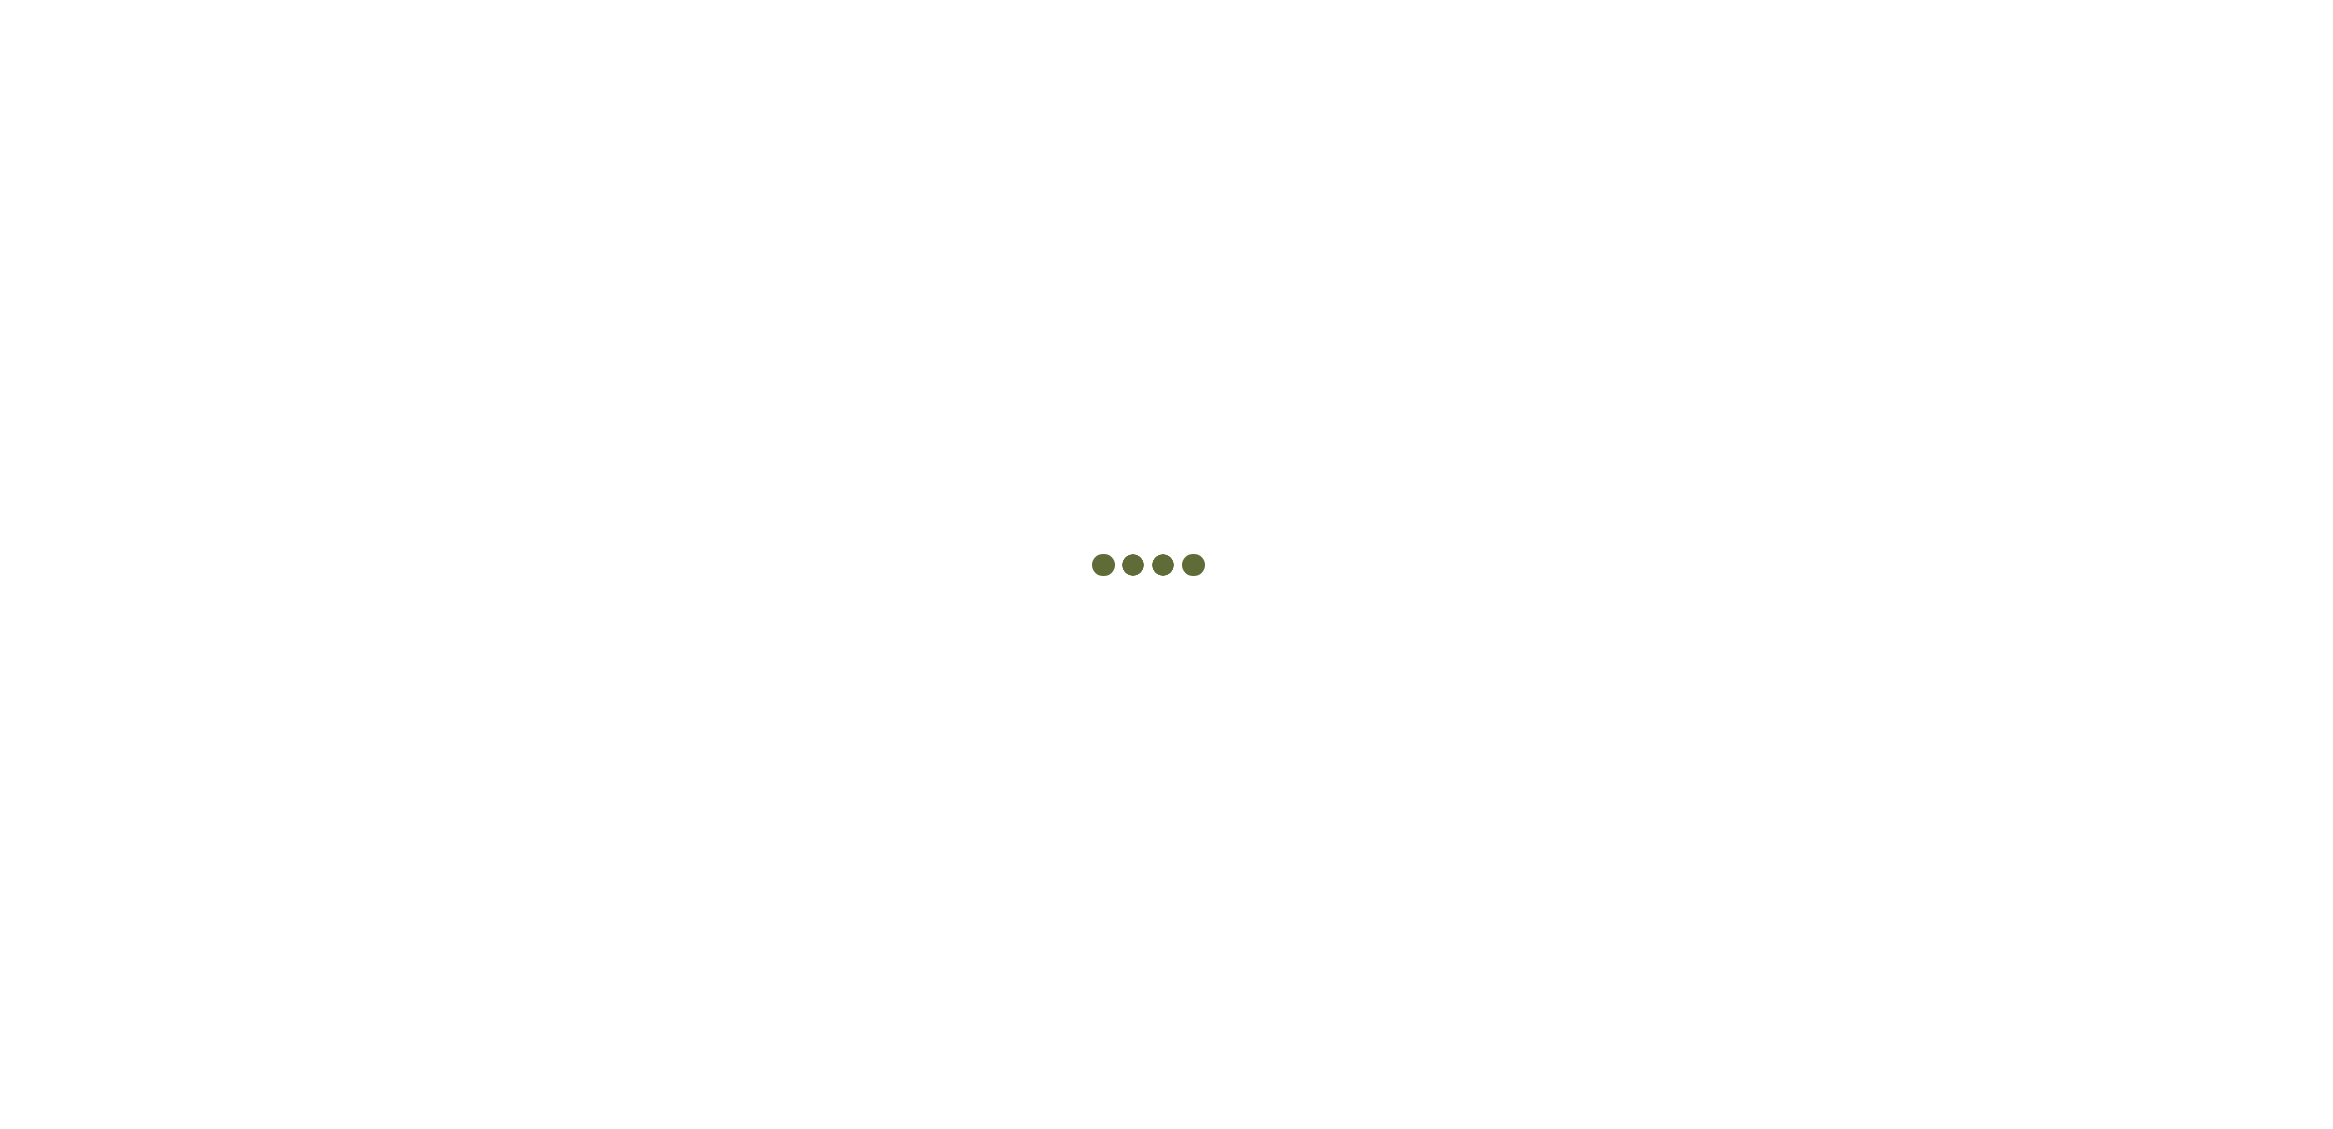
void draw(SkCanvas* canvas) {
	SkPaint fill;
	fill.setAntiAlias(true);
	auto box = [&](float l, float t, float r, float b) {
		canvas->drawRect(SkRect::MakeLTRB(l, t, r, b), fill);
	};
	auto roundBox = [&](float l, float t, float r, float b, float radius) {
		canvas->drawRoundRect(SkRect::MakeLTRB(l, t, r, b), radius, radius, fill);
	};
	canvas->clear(0xFFFFFFFF);
	{
		const SkColor colors[] = {0xFF606C38, 0xFFFFFFFF};
		const float stops[] = {0.95f, 1};
		fill.setShader(SkGradientShader::MakeRadial({1163, 565}, 11, colors, stops, 2, SkTileMode::kClamp));
		fill.setAlpha(255);
	}
	box(1152, 554, 1174, 576);
	{
		const SkColor colors[] = {0xFF606C38, 0xFFFFFFFF};
		const float stops[] = {0.95f, 1};
		fill.setShader(SkGradientShader::MakeRadial({1133, 565}, 11, colors, stops, 2, SkTileMode::kClamp));
		fill.setAlpha(255);
	}
	box(1122, 554, 1144, 576);
	fill.setShader(nullptr);
	fill.setColor(0xFF606C38);
	roundBox(1092, 554, 1115, 576, 11);
	roundBox(1182, 554, 1205, 576, 11);
}
